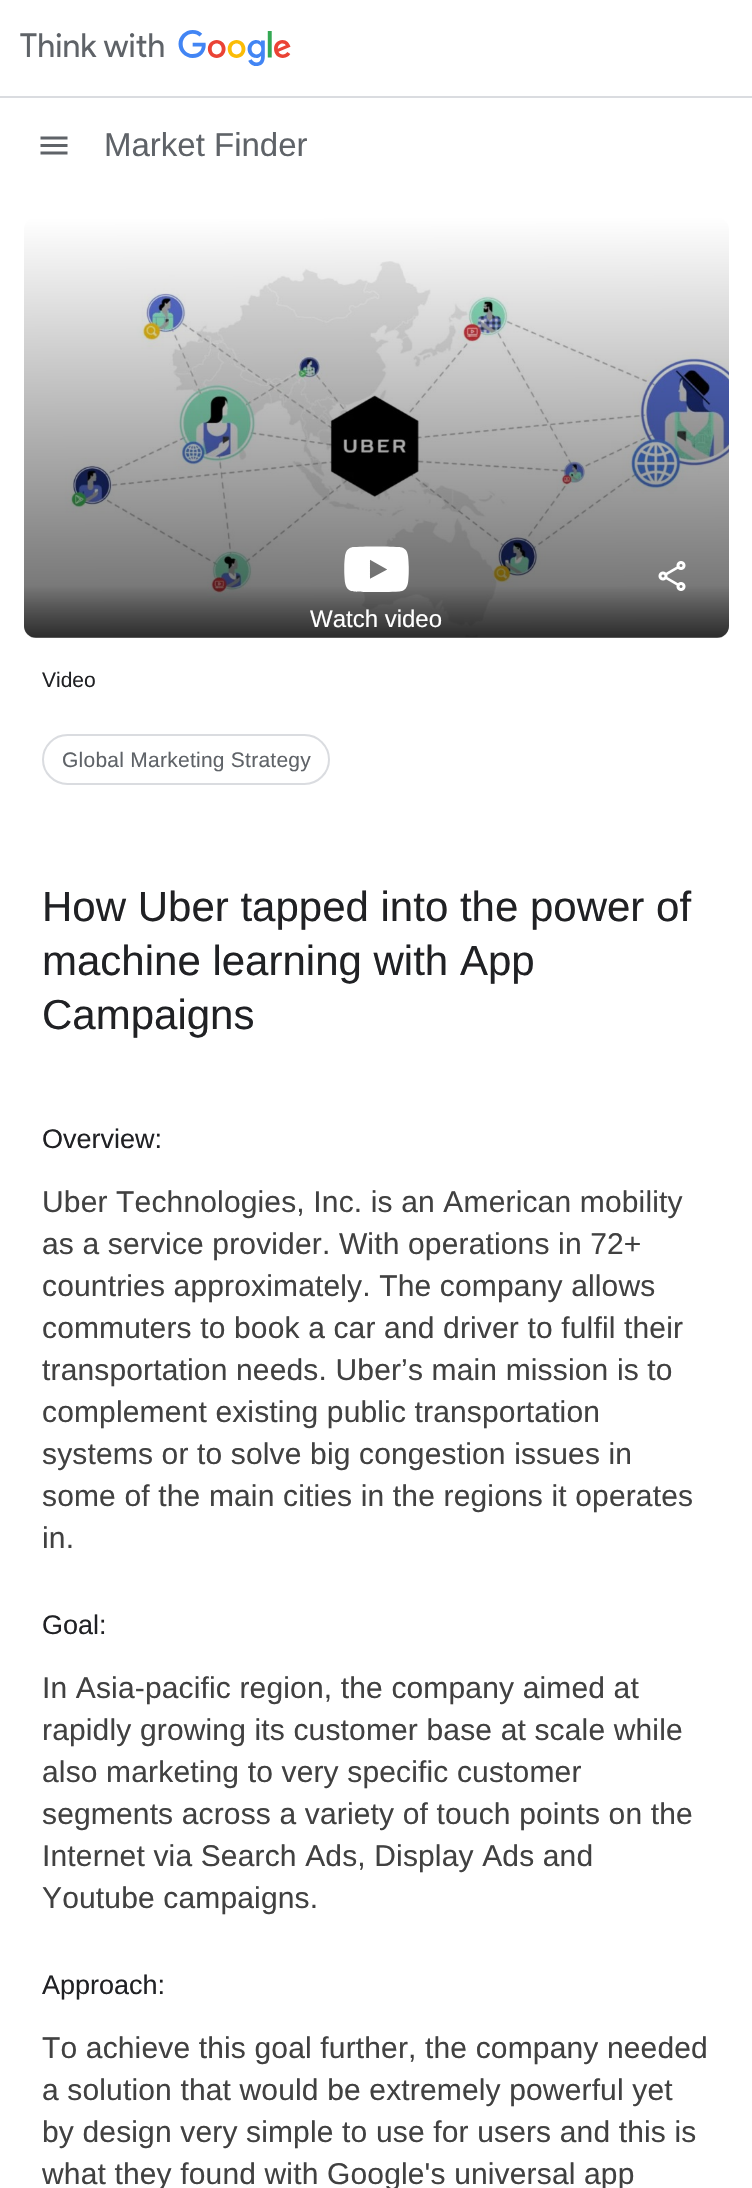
void draw(SkCanvas* canvas) {
	SkPaint fill;
	fill.setAntiAlias(true);
	auto makeFont = [&](const char* family, int weight, float size, bool italic = false) {
		SkFontStyle style(weight, SkFontStyle::kNormal_Width,
			italic ? SkFontStyle::kItalic_Slant : SkFontStyle::kUpright_Slant);
		SkFont result(fontMgr->matchFamilyStyle(family, style), size);
		result.setSubpixel(true);
		return result;
	};
	auto text = [&](const char* s, float x, float y, const SkFont& font) {
		canvas->drawString(s, x, y, font, fill);
	};
	auto spacedText = [&](const char* s, float x, float y, const SkFont& font, const SkPaint& ink, float letter, float word) {
		std::vector<SkGlyphID> glyphs(font.countText(s, strlen(s), SkTextEncoding::kUTF8));
		std::vector<float> xs(glyphs.size());
		font.textToGlyphs(s, strlen(s), SkTextEncoding::kUTF8, glyphs);
		font.getXPos(glyphs, xs, x);
		float extra = 0;
		for (size_t i = 0; i < glyphs.size(); i++) {
			xs[i] += extra;
			extra += letter + word * (glyphs[i] == font.unicharToGlyph(' '));
		}
		canvas->drawTextBlob(SkTextBlob::MakeFromPosHGlyphs(glyphs, xs, y, font), 0, 0, ink);
	};
	auto box = [&](float l, float t, float r, float b) {
		canvas->drawRect(SkRect::MakeLTRB(l, t, r, b), fill);
	};
	auto roundBox = [&](float l, float t, float r, float b, float radius) {
		canvas->drawRoundRect(SkRect::MakeLTRB(l, t, r, b), radius, radius, fill);
	};
	auto picture = [&](const char* path, float l, float t, float r, float b) {
		auto image = SkImages::DeferredFromEncodedData(SkData::MakeFromFileName(path));
		canvas->drawImageRect(image, SkRect::MakeLTRB(l, t, r, b), SkSamplingOptions());
	};
	canvas->clear(0xFFFFFFFF);
	fill.setColor(0xFFDADCE0);
	box(0, 96, 752, 98);
	picture("image0.png", 20, 30, 291, 66);
	picture("image1.png", 40, 136, 68, 155);
	picture("image2.png", 24, 261, 729, 638);
	{
		const SkColor colors[] = {0x00000000, 0x99000000};
		const float stops[] = {0, 1};
		const SkPoint ends[] = {{376, 217}, {377, 638}};
		fill.setShader(SkGradientShader::MakeLinear(ends, colors, stops, 2, SkTileMode::kClamp));
		fill.setAlpha(255);
	}
	roundBox(24, 218, 729, 638, 12);
	picture("image3.png", 658, 561, 686, 591);
	picture("image4.png", 344, 546, 409, 592);
	fill.setStyle(SkPaint::kStroke_Style);
	fill.setStrokeWidth(2);
	fill.setShader(nullptr);
	fill.setColor(0xFFDADCE0);
	canvas->drawRoundRect(SkRect::MakeLTRB(43, 735, 329, 784), 24.5f, 24.5f, fill);
	auto font1 = makeFont("Liberation Sans", 400, 33);
	fill.setStyle(SkPaint::kFill_Style);
	fill.setColor(0xFF5F6368);
	text("Market Finder", 104, 156, font1);
	auto font2 = makeFont("Liberation Sans", 400, 24);
	fill.setColor(0xFFFFFFFF);
	text("Watch video", 310, 627, font2);
	auto font3 = makeFont("Liberation Sans", 400, 21);
	fill.setColor(0xFF202124);
	text("Video", 42, 687, font3);
	fill.setColor(0xFF5F6368);
	spacedText("Global Marketing Strategy", 62, 767, font3, fill, 0.25f, 0);
	auto font4 = makeFont("Liberation Sans", 400, 42);
	fill.setColor(0xFF202124);
	text("How Uber tapped into the power of", 42, 921, font4);
	text("machine learning with App", 42, 975, font4);
	text("Campaigns", 42, 1029, font4);
	auto font5 = makeFont("Liberation Sans", 400, 27);
	text("Overview:", 42, 1148, font5);
	auto font6 = makeFont("Liberation Sans", 400, 30);
	fill.setColor(0xFF414141);
	spacedText("Uber Technologies, Inc. is an American mobility", 42, 1212, font6, fill, 0.15f, 0);
	spacedText("as a service provider. With operations in 72+", 42, 1254, font6, fill, 0.15f, 0);
	spacedText("countries approximately. The company allows", 42, 1296, font6, fill, 0.15f, 0);
	spacedText("commuters to book a car and driver to fulfil their", 42, 1338, font6, fill, 0.15f, 0);
	spacedText("transportation needs. Uber’s main mission is to", 42, 1380, font6, fill, 0.15f, 0);
	spacedText("complement existing public transportation", 42, 1422, font6, fill, 0.15f, 0);
	spacedText("systems or to solve big congestion issues in", 42, 1464, font6, fill, 0.15f, 0);
	spacedText("some of the main cities in the regions it operates", 42, 1506, font6, fill, 0.15f, 0);
	spacedText("in.", 42, 1548, font6, fill, 0.15f, 0);
	fill.setColor(0xFF202124);
	text("Goal:", 42, 1634, font5);
	fill.setColor(0xFF414141);
	spacedText("In Asia-pacific region, the company aimed at", 42, 1698, font6, fill, 0.15f, 0);
	spacedText("rapidly growing its customer base at scale while", 42, 1740, font6, fill, 0.15f, 0);
	spacedText("also marketing to very specific customer", 42, 1782, font6, fill, 0.15f, 0);
	spacedText("segments across a variety of touch points on the", 42, 1824, font6, fill, 0.15f, 0);
	spacedText("Internet via Search Ads, Display Ads and", 42, 1866, font6, fill, 0.15f, 0);
	spacedText("Youtube campaigns.", 42, 1908, font6, fill, 0.15f, 0);
	fill.setColor(0xFF202124);
	text("Approach:", 42, 1994, font5);
	fill.setColor(0xFF414141);
	spacedText("To achieve this goal further, the company needed", 42, 2058, font6, fill, 0.15f, 0);
	spacedText("a solution that would be extremely powerful yet", 42, 2100, font6, fill, 0.15f, 0);
	spacedText("by design very simple to use for users and this is", 42, 2142, font6, fill, 0.15f, 0);
	spacedText("what they found with Google's universal app", 42, 2184, font6, fill, 0.15f, 0);
}
